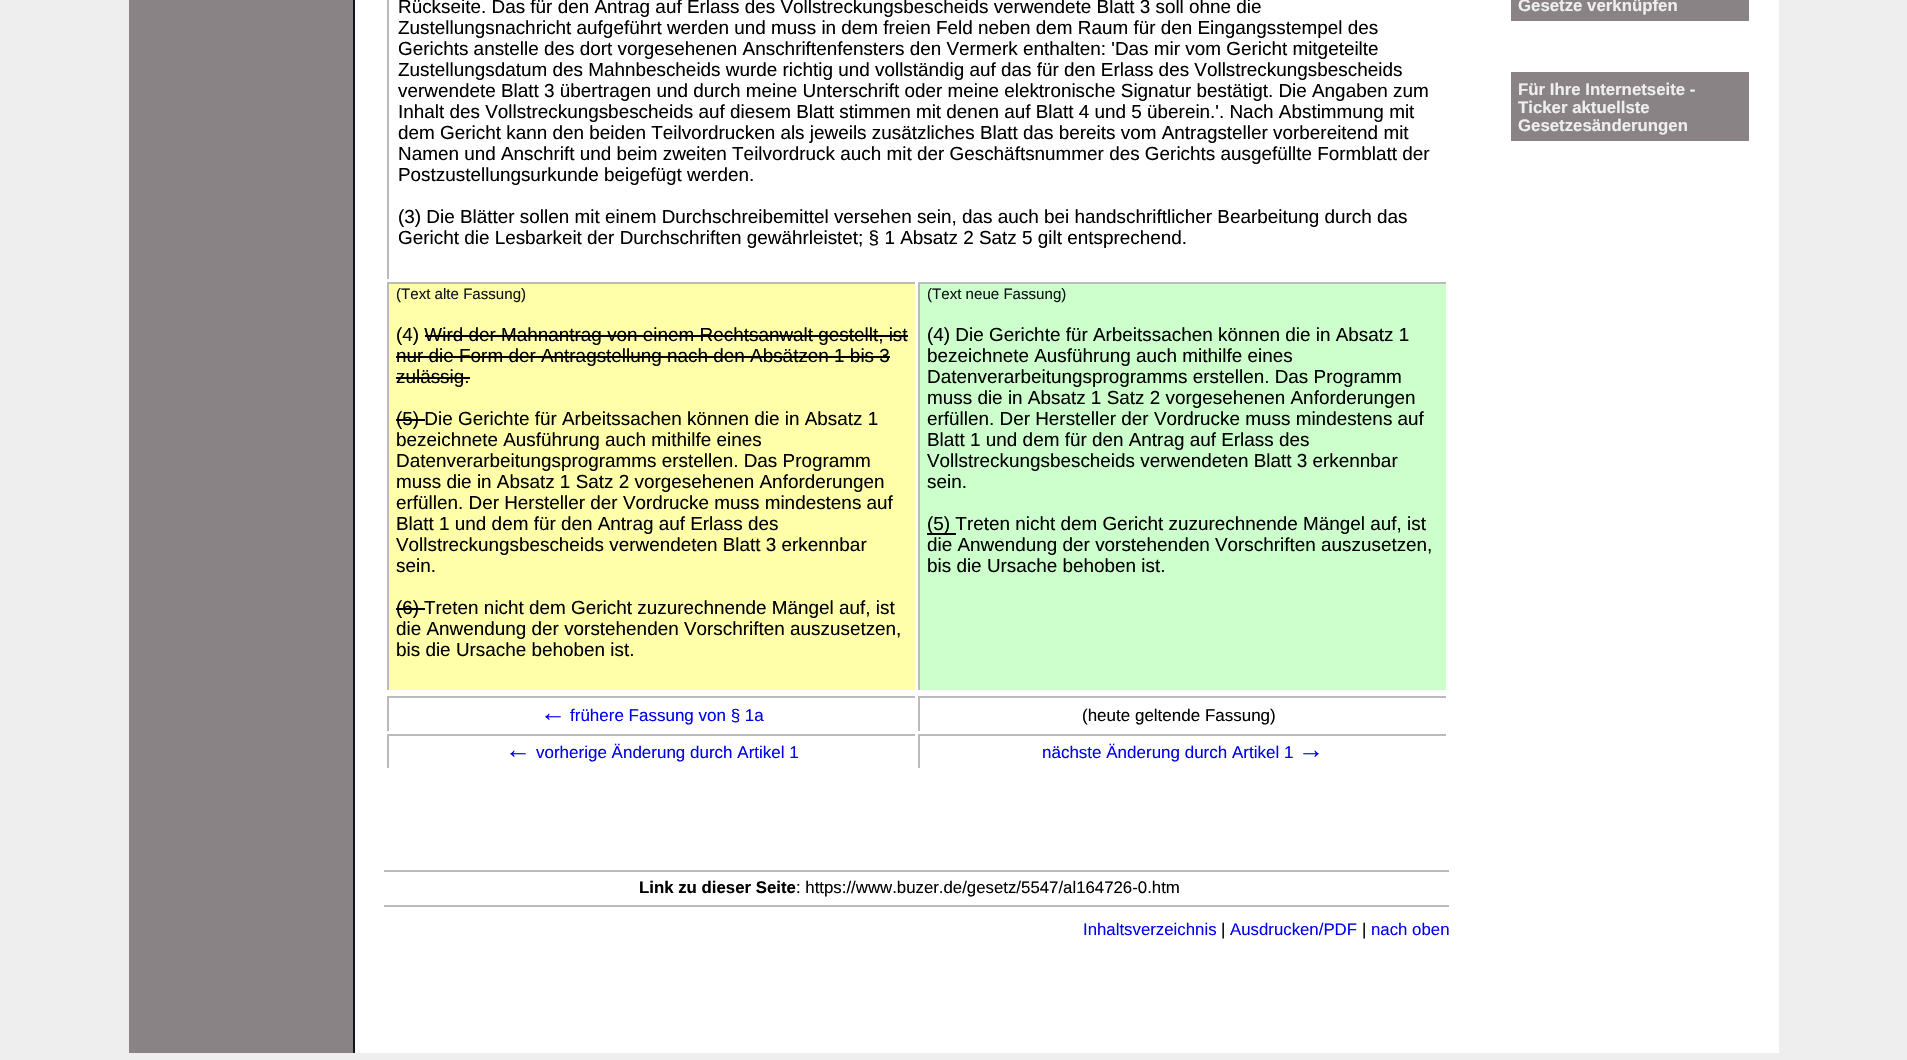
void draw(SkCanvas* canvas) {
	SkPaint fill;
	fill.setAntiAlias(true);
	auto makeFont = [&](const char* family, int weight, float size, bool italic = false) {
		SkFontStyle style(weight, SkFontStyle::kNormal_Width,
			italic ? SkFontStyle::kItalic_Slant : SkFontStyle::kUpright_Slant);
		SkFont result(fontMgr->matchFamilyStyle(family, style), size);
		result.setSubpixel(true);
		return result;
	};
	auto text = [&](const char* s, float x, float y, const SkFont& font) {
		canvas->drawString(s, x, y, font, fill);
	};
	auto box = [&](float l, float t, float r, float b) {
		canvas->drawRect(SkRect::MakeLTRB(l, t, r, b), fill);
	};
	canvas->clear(0xFFEEEEEE);
	fill.setColor(0xFF8A8386);
	box(129, 0, 353, 1053);
	fill.setColor(0xFF0F1419);
	box(353, 0, 355, 1053);
	fill.setColor(0xFFFFFFFF);
	box(355, 0, 1779, 1053);
	fill.setColor(0xFFBBBBBB);
	box(387, 0, 389, 279);
	fill.setColor(0xFFFFFFAA);
	box(389, 284, 915, 690);
	fill.setColor(0xFFBBBBBB);
	box(387, 282, 915, 284);
	box(387, 282, 389, 690);
	fill.setColor(0xFF000000);
	box(425, 335, 908, 337);
	box(396, 356, 890, 358);
	box(396, 377, 470, 379);
	box(396, 419, 425, 421);
	box(396, 608, 425, 610);
	fill.setColor(0xFFCCFFCC);
	box(920, 284, 1446, 690);
	fill.setColor(0xFFBBBBBB);
	box(918, 282, 1446, 284);
	box(918, 282, 920, 690);
	fill.setColor(0xFF000000);
	box(927, 533, 956, 535);
	fill.setColor(0xFFBBBBBB);
	box(387, 696, 915, 698);
	box(387, 696, 389, 731);
	box(918, 696, 1446, 698);
	box(918, 696, 920, 731);
	box(387, 734, 915, 736);
	box(387, 734, 389, 768);
	box(918, 734, 1446, 736);
	box(918, 734, 920, 768);
	box(384, 870, 1449, 872);
	box(384, 905, 1449, 907);
	fill.setColor(0xFF8A8386);
	box(1511, 0, 1749, 21);
	box(1511, 72, 1749, 141);
	auto font1 = makeFont("Liberation Sans", 400, 18.9f);
	fill.setColor(0xFF000000);
	text("Rückseite. Das für den Antrag auf Erlass des Vollstreckungsbescheids verwendete Blatt 3 soll ohne die", 398, 13, font1);
	text("Zustellungsnachricht aufgeführt werden und muss in dem freien Feld neben dem Raum für den Eingangsstempel des", 398, 34, font1);
	text("Gerichts anstelle des dort vorgesehenen Anschriftenfensters den Vermerk enthalten: 'Das mir vom Gericht mitgeteilte", 398, 55, font1);
	text("Zustellungsdatum des Mahnbescheids wurde richtig und vollständig auf das für den Erlass des Vollstreckungsbescheids", 398, 76, font1);
	text("verwendete Blatt 3 übertragen und durch meine Unterschrift oder meine elektronische Signatur bestätigt. Die Angaben zum", 398, 97, font1);
	text("Inhalt des Vollstreckungsbescheids auf diesem Blatt stimmen mit denen auf Blatt 4 und 5 überein.'. Nach Abstimmung mit", 398, 118, font1);
	text("dem Gericht kann den beiden Teilvordrucken als jeweils zusätzliches Blatt das bereits vom Antragsteller vorbereitend mit", 398, 139, font1);
	text("Namen und Anschrift und beim zweiten Teilvordruck auch mit der Geschäftsnummer des Gerichts ausgefüllte Formblatt der", 398, 160, font1);
	text("Postzustellungsurkunde beigefügt werden.", 398, 181, font1);
	text("(3) Die Blätter sollen mit einem Durchschreibemittel versehen sein, das auch bei handschriftlicher Bearbeitung durch das", 398, 223, font1);
	text("Gericht die Lesbarkeit der Durchschriften gewährleistet; § 1 Absatz 2 Satz 5 gilt entsprechend.", 398, 244, font1);
	auto font2 = makeFont("Liberation Sans", 400, 15.1f);
	fill.setColor(0xFF0F1419);
	text("(Text alte Fassung)", 396, 299, font2);
	fill.setColor(0xFF000000);
	text("(4) Wird der Mahnantrag von einem Rechtsanwalt gestellt, ist", 396, 341, font1);
	text("nur die Form der Antragstellung nach den Absätzen 1 bis 3", 396, 362, font1);
	text("zulässig.", 396, 383, font1);
	text("(5) Die Gerichte für Arbeitssachen können die in Absatz 1", 396, 425, font1);
	text("bezeichnete Ausführung auch mithilfe eines", 396, 446, font1);
	text("Datenverarbeitungsprogramms erstellen. Das Programm", 396, 467, font1);
	text("muss die in Absatz 1 Satz 2 vorgesehenen Anforderungen", 396, 488, font1);
	text("erfüllen. Der Hersteller der Vordrucke muss mindestens auf", 396, 509, font1);
	text("Blatt 1 und dem für den Antrag auf Erlass des", 396, 530, font1);
	text("Vollstreckungsbescheids verwendeten Blatt 3 erkennbar", 396, 551, font1);
	text("sein.", 396, 572, font1);
	text("(6)", 396, 614, font1);
	text("Treten nicht dem Gericht zuzurechnende Mängel auf, ist", 424, 614, font1);
	text("die Anwendung der vorstehenden Vorschriften auszusetzen,", 396, 635, font1);
	text("bis die Ursache behoben ist.", 396, 656, font1);
	fill.setColor(0xFF0F1419);
	text("(Text neue Fassung)", 927, 299, font2);
	fill.setColor(0xFF000000);
	text("(4) Die Gerichte für Arbeitssachen können die in Absatz 1", 927, 341, font1);
	text("bezeichnete Ausführung auch mithilfe eines", 927, 362, font1);
	text("Datenverarbeitungsprogramms erstellen. Das Programm", 927, 383, font1);
	text("muss die in Absatz 1 Satz 2 vorgesehenen Anforderungen", 927, 404, font1);
	text("erfüllen. Der Hersteller der Vordrucke muss mindestens auf", 927, 425, font1);
	text("Blatt 1 und dem für den Antrag auf Erlass des", 927, 446, font1);
	text("Vollstreckungsbescheids verwendeten Blatt 3 erkennbar", 927, 467, font1);
	text("sein.", 927, 488, font1);
	text("(5) Treten nicht dem Gericht zuzurechnende Mängel auf, ist", 927, 530, font1);
	text("die Anwendung der vorstehenden Vorschriften auszusetzen,", 927, 551, font1);
	text("bis die Ursache behoben ist.", 927, 572, font1);
	auto font3 = makeFont("Liberation Sans", 400, 26);
	fill.setColor(0xFF0000EE);
	text("←", 540, 721, font3);
	auto font4 = makeFont("Liberation Sans", 400, 17);
	text("frühere Fassung von § 1a", 570, 721, font4);
	fill.setColor(0xFF000000);
	text("(heute geltende Fassung)", 1082, 721, font4);
	fill.setColor(0xFF0000EE);
	text("←", 505, 758, font3);
	text("vorherige Änderung durch Artikel 1", 536, 758, font4);
	text("nächste Änderung durch Artikel 1", 1042, 758, font4);
	text("→", 1298, 758, font3);
	auto font5 = makeFont("Liberation Sans", 700, 16.8f);
	fill.setColor(0xFF000000);
	text("Link zu dieser Seite", 639, 893, font5);
	auto font6 = makeFont("Liberation Sans", 400, 16.8f);
	text(": https://www.buzer.de/gesetz/5547/al164726-0.htm", 796, 893, font6);
	fill.setColor(0xFF0000EE);
	text("Inhaltsverzeichnis", 1083, 935, font6);
	fill.setColor(0xFF000000);
	text("|", 1221, 935, font6);
	fill.setColor(0xFF0000EE);
	text("Ausdrucken/PDF", 1230, 935, font6);
	fill.setColor(0xFF000000);
	text("|", 1362, 935, font6);
	fill.setColor(0xFF0000EE);
	text("nach oben", 1371, 935, font6);
	fill.setColor(0xFFEEEEEE);
	text("Gesetze verknüpfen", 1518, 11, font5);
	text("Für Ihre Internetseite -", 1518, 95, font5);
	text("Ticker aktuellste", 1518, 113, font5);
	text("Gesetzesänderungen", 1518, 131, font5);
}
